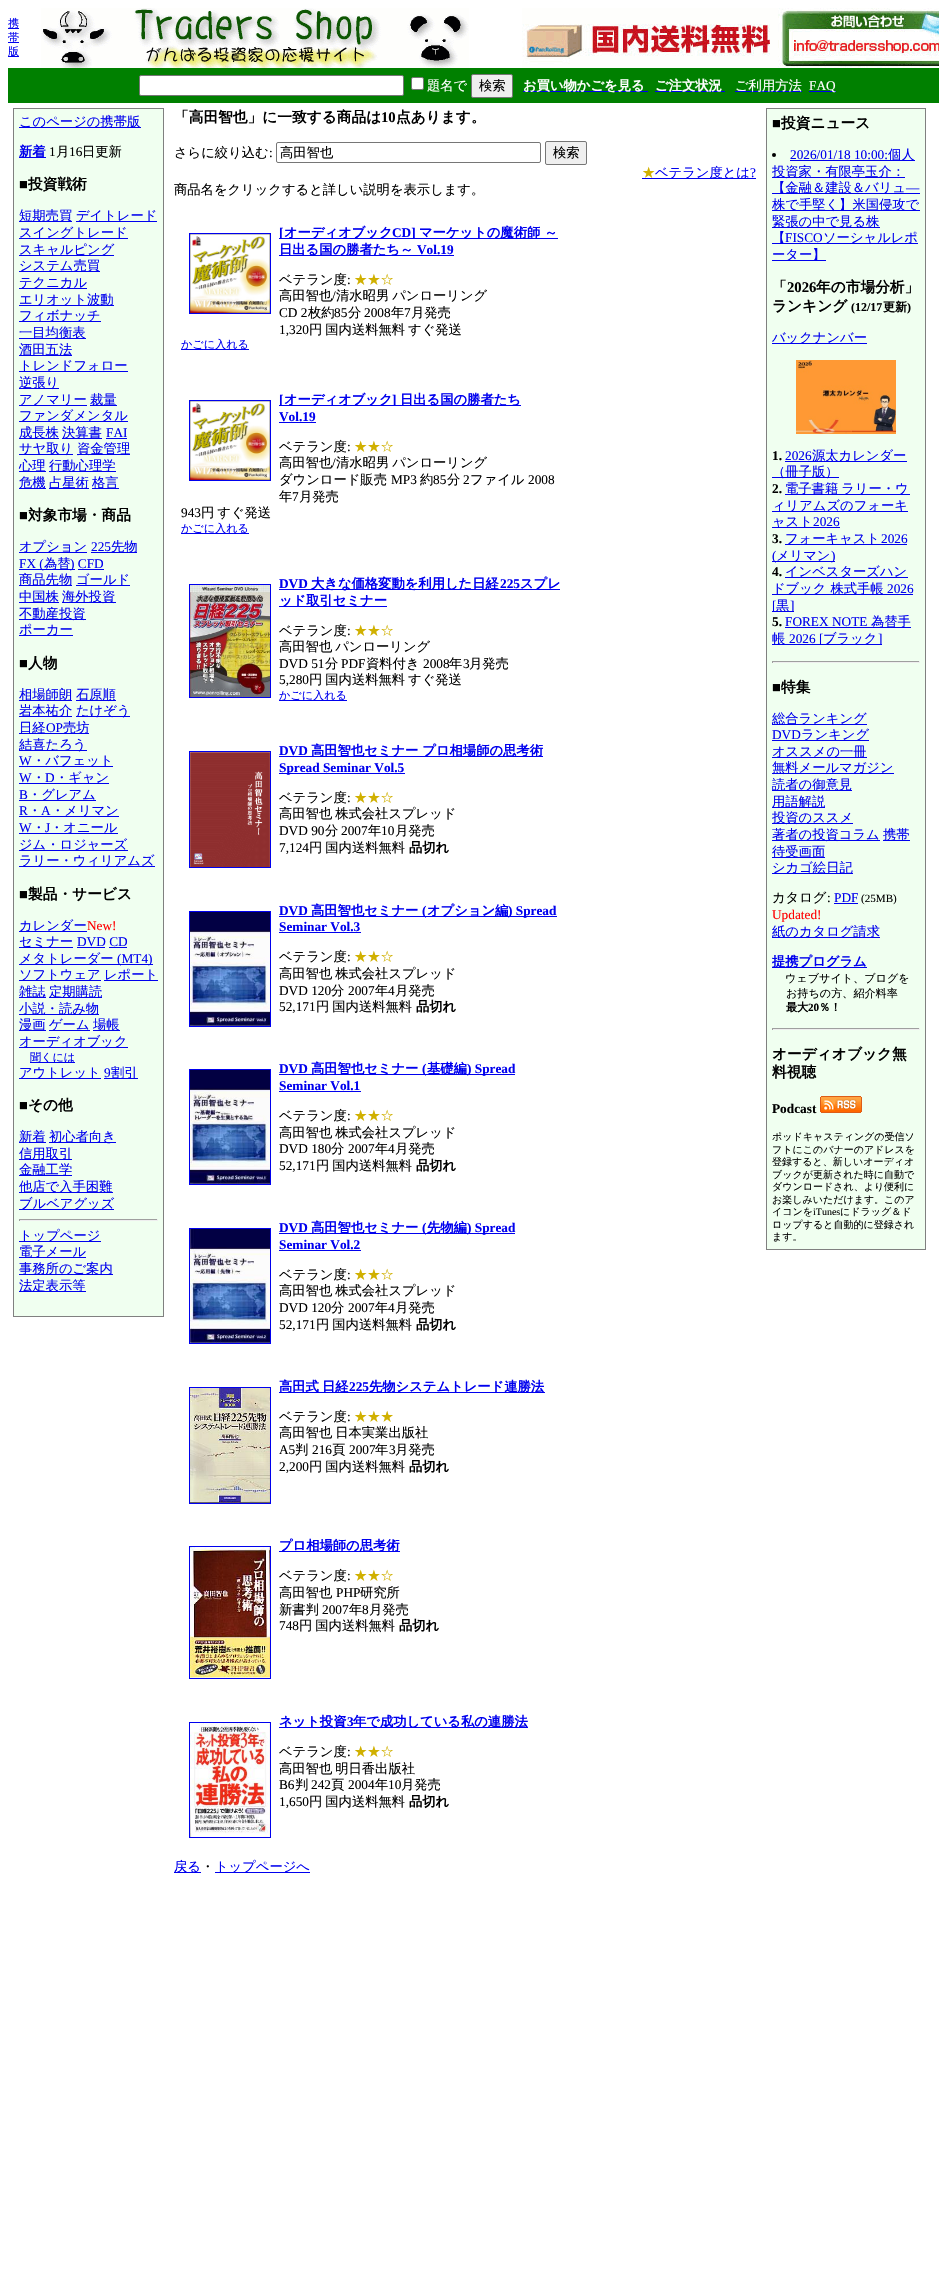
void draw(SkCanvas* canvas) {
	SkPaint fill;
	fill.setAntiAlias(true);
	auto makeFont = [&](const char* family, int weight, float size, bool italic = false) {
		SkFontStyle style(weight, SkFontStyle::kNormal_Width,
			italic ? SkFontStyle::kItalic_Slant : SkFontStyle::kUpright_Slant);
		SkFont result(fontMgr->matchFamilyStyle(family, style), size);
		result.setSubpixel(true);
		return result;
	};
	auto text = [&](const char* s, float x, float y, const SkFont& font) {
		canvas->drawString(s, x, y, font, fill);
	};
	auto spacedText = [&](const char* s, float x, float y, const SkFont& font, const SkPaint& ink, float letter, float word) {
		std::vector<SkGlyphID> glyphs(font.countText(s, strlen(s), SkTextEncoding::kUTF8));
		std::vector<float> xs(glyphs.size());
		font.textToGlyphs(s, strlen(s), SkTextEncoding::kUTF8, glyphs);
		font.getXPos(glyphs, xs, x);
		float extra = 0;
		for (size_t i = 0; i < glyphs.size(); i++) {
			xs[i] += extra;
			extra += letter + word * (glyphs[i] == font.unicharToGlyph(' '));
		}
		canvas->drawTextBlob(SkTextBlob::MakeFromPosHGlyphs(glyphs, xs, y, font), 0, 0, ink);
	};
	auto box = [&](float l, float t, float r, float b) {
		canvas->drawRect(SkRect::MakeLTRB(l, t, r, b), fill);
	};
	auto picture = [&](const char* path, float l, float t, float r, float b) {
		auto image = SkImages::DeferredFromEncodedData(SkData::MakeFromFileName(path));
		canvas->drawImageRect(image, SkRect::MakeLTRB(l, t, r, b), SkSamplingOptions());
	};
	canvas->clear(0xFFFFFFFF);
	fill.setColor(0xFF0000EE);
	box(8, 28, 19, 29);
	box(8, 42, 19, 43);
	box(8, 56, 19, 57);
	picture("image0.png", 41, 8, 469, 68);
	picture("image1.png", 522, 8, 939, 68);
	fill.setColor(0xFF008000);
	box(8, 68, 939, 103);
	fill.setColor(0xFFFFFFFF);
	canvas->drawRoundRect(SkRect::MakeLTRB(139.5f, 75.5f, 403.5f, 95.5f), 1.5f, 1.5f, fill);
	fill.setStyle(SkPaint::kStroke_Style);
	fill.setStrokeWidth(1);
	fill.setColor(0xFF767676);
	canvas->drawRoundRect(SkRect::MakeLTRB(139.5f, 75.5f, 403.5f, 95.5f), 1.5f, 1.5f, fill);
	fill.setStyle(SkPaint::kFill_Style);
	fill.setColor(0xFFFFFFFF);
	canvas->drawRoundRect(SkRect::MakeLTRB(411.5f, 77.5f, 423.5f, 89.5f), 1.5f, 1.5f, fill);
	fill.setStyle(SkPaint::kStroke_Style);
	fill.setColor(0xFF767676);
	canvas->drawRoundRect(SkRect::MakeLTRB(411.5f, 77.5f, 423.5f, 89.5f), 1.5f, 1.5f, fill);
	fill.setStyle(SkPaint::kFill_Style);
	fill.setColor(0xFFEFEFEF);
	canvas->drawRoundRect(SkRect::MakeLTRB(471.5f, 74.5f, 512.5f, 97.5f), 1.5f, 1.5f, fill);
	fill.setStyle(SkPaint::kStroke_Style);
	fill.setColor(0xFF767676);
	canvas->drawRoundRect(SkRect::MakeLTRB(471.5f, 74.5f, 512.5f, 97.5f), 1.5f, 1.5f, fill);
	fill.setStyle(SkPaint::kFill_Style);
	fill.setColor(0xFF0000EE);
	box(523, 91, 648, 92);
	box(655, 91, 725, 92);
	box(735, 91, 802, 92);
	box(809, 91, 836, 92);
	fill.setColor(0xFF808080);
	box(13, 108, 164, 1317);
	fill.setColor(0xFFF0FFF0);
	box(14, 109, 163, 1316);
	fill.setColor(0xFF0000EE);
	box(19, 127, 141, 128);
	box(19, 157, 46, 158);
	box(19, 221, 72, 222);
	box(76, 221, 157, 222);
	box(19, 238, 128, 239);
	box(19, 255, 114, 256);
	box(19, 271, 100, 272);
	box(19, 288, 87, 289);
	box(19, 305, 114, 306);
	box(19, 321, 101, 322);
	box(19, 338, 86, 339);
	box(19, 355, 72, 356);
	box(19, 371, 128, 372);
	box(19, 388, 59, 389);
	box(19, 405, 87, 406);
	box(90, 405, 117, 406);
	box(19, 421, 128, 422);
	box(19, 438, 59, 439);
	box(62, 438, 102, 439);
	box(106, 438, 127, 439);
	box(19, 454, 73, 455);
	box(77, 454, 130, 455);
	box(19, 471, 46, 472);
	box(49, 471, 116, 472);
	box(19, 488, 46, 489);
	box(49, 488, 89, 489);
	box(92, 488, 119, 489);
	box(19, 552, 87, 553);
	box(91, 552, 137, 553);
	box(19, 569, 75, 570);
	box(78, 569, 104, 570);
	box(19, 585, 72, 586);
	box(76, 585, 130, 586);
	box(19, 602, 59, 603);
	box(62, 602, 116, 603);
	box(19, 619, 86, 620);
	box(19, 635, 73, 636);
	box(19, 700, 72, 701);
	box(76, 700, 116, 701);
	box(19, 716, 72, 717);
	box(76, 716, 130, 717);
	box(19, 733, 89, 734);
	box(19, 750, 87, 751);
	box(19, 766, 113, 767);
	box(19, 783, 109, 784);
	box(19, 800, 96, 801);
	box(19, 816, 119, 817);
	box(19, 833, 118, 834);
	box(19, 850, 128, 851);
	box(19, 866, 155, 867);
	box(19, 931, 87, 932);
	box(19, 947, 73, 948);
	box(77, 947, 105, 948);
	box(109, 947, 127, 948);
	box(19, 964, 153, 965);
	box(19, 980, 101, 981);
	box(104, 980, 158, 981);
	box(19, 997, 46, 998);
	box(49, 997, 102, 998);
	box(19, 1014, 99, 1015);
	box(19, 1030, 46, 1031);
	box(49, 1030, 90, 1031);
	box(93, 1030, 120, 1031);
	box(19, 1047, 128, 1048);
	box(30, 1062, 75, 1063);
	box(19, 1078, 101, 1079);
	box(104, 1078, 138, 1079);
	box(19, 1142, 46, 1143);
	box(49, 1142, 116, 1143);
	box(19, 1159, 72, 1160);
	box(19, 1175, 72, 1176);
	box(19, 1192, 113, 1193);
	box(19, 1209, 114, 1210);
	fill.setColor(0xFF9F9F9F);
	box(19, 1219, 158, 1220);
	fill.setColor(0xFFEEEEEE);
	box(157, 1219, 158, 1221);
	box(19, 1220, 158, 1221);
	fill.setColor(0xFF9F9F9F);
	box(19, 1219, 20, 1221);
	fill.setColor(0xFF0000EE);
	box(19, 1241, 101, 1242);
	box(19, 1257, 86, 1258);
	box(19, 1274, 113, 1275);
	box(19, 1291, 86, 1292);
	fill.setStyle(SkPaint::kStroke_Style);
	fill.setColor(0xFF767676);
	canvas->drawRoundRect(SkRect::MakeLTRB(276.5f, 142.5f, 540.5f, 162.5f), 1.5f, 1.5f, fill);
	fill.setStyle(SkPaint::kFill_Style);
	fill.setColor(0xFFEFEFEF);
	canvas->drawRoundRect(SkRect::MakeLTRB(545.5f, 141.5f, 586.5f, 164.5f), 1.5f, 1.5f, fill);
	fill.setStyle(SkPaint::kStroke_Style);
	fill.setColor(0xFF767676);
	canvas->drawRoundRect(SkRect::MakeLTRB(545.5f, 141.5f, 586.5f, 164.5f), 1.5f, 1.5f, fill);
	fill.setStyle(SkPaint::kFill_Style);
	fill.setColor(0xFF0000EE);
	box(642, 178, 756, 179);
	fill.setStyle(SkPaint::kStroke_Style);
	canvas->drawRect(SkRect::MakeLTRB(189.5f, 233.5f, 270.5f, 313.5f), fill);
	picture("image2.png", 190, 234, 270, 313);
	fill.setStyle(SkPaint::kFill_Style);
	box(279, 238, 558, 239);
	box(279, 255, 454, 256);
	box(181, 349, 249, 350);
	fill.setStyle(SkPaint::kStroke_Style);
	canvas->drawRect(SkRect::MakeLTRB(189.5f, 400.5f, 270.5f, 480.5f), fill);
	picture("image2.png", 190, 401, 270, 480);
	fill.setStyle(SkPaint::kFill_Style);
	box(279, 405, 521, 406);
	box(279, 422, 316, 423);
	box(181, 533, 249, 534);
	fill.setStyle(SkPaint::kStroke_Style);
	canvas->drawRect(SkRect::MakeLTRB(189.5f, 584.5f, 270.5f, 697.5f), fill);
	picture("image3.png", 190, 585, 270, 697);
	fill.setStyle(SkPaint::kFill_Style);
	box(279, 589, 560, 590);
	box(279, 606, 387, 607);
	box(279, 700, 347, 701);
	fill.setStyle(SkPaint::kStroke_Style);
	canvas->drawRect(SkRect::MakeLTRB(189.5f, 751.5f, 270.5f, 867.5f), fill);
	picture("image4.png", 190, 752, 270, 867);
	fill.setStyle(SkPaint::kFill_Style);
	box(279, 756, 543, 757);
	box(279, 773, 405, 774);
	fill.setStyle(SkPaint::kStroke_Style);
	canvas->drawRect(SkRect::MakeLTRB(189.5f, 911.5f, 270.5f, 1026.5f), fill);
	picture("image5.png", 190, 912, 270, 1026);
	fill.setStyle(SkPaint::kFill_Style);
	box(279, 916, 557, 917);
	box(279, 932, 361, 933);
	fill.setStyle(SkPaint::kStroke_Style);
	canvas->drawRect(SkRect::MakeLTRB(189.5f, 1069.5f, 270.5f, 1184.5f), fill);
	picture("image6.png", 190, 1070, 270, 1184);
	fill.setStyle(SkPaint::kFill_Style);
	box(279, 1074, 515, 1075);
	box(279, 1091, 361, 1092);
	fill.setStyle(SkPaint::kStroke_Style);
	canvas->drawRect(SkRect::MakeLTRB(189.5f, 1228.5f, 270.5f, 1343.5f), fill);
	picture("image7.png", 190, 1229, 270, 1343);
	fill.setStyle(SkPaint::kFill_Style);
	box(279, 1233, 515, 1234);
	box(279, 1250, 361, 1251);
	fill.setStyle(SkPaint::kStroke_Style);
	canvas->drawRect(SkRect::MakeLTRB(189.5f, 1387.5f, 270.5f, 1503.5f), fill);
	picture("image8.png", 190, 1388, 270, 1503);
	fill.setStyle(SkPaint::kFill_Style);
	box(279, 1392, 545, 1393);
	fill.setStyle(SkPaint::kStroke_Style);
	canvas->drawRect(SkRect::MakeLTRB(189.5f, 1546.5f, 270.5f, 1678.5f), fill);
	picture("image9.png", 190, 1547, 270, 1678);
	fill.setStyle(SkPaint::kFill_Style);
	box(279, 1551, 400, 1552);
	fill.setStyle(SkPaint::kStroke_Style);
	canvas->drawRect(SkRect::MakeLTRB(189.5f, 1722.5f, 270.5f, 1837.5f), fill);
	picture("image10.png", 190, 1723, 270, 1837);
	fill.setStyle(SkPaint::kFill_Style);
	box(279, 1727, 528, 1728);
	box(174, 1872, 201, 1873);
	box(215, 1872, 310, 1873);
	fill.setColor(0xFF808080);
	box(766, 108, 926, 1250);
	fill.setColor(0xFFF0FFF0);
	box(767, 109, 925, 1249);
	fill.setColor(0xFF000000);
	canvas->drawCircle(774, 155, 2, fill);
	fill.setColor(0xFF0000EE);
	box(790, 160, 915, 161);
	box(772, 177, 905, 178);
	box(772, 193, 920, 194);
	box(772, 210, 920, 211);
	box(772, 227, 880, 228);
	box(772, 243, 918, 244);
	box(772, 260, 826, 261);
	box(772, 343, 867, 344);
	picture("image11.png", 796, 360, 896, 434);
	box(785, 461, 907, 462);
	box(772, 477, 839, 478);
	box(785, 494, 910, 495);
	box(772, 511, 908, 512);
	box(772, 527, 840, 528);
	box(785, 544, 907, 545);
	box(772, 561, 835, 562);
	box(785, 577, 908, 578);
	box(772, 594, 913, 595);
	box(772, 611, 794, 612);
	box(785, 627, 911, 628);
	box(772, 644, 882, 645);
	fill.setColor(0xFF9F9F9F);
	box(772, 661, 920, 662);
	fill.setColor(0xFFEEEEEE);
	box(919, 661, 920, 663);
	box(772, 662, 920, 663);
	fill.setColor(0xFF9F9F9F);
	box(772, 661, 773, 663);
	fill.setColor(0xFF0000EE);
	box(772, 724, 867, 725);
	box(772, 740, 869, 741);
	box(772, 757, 867, 758);
	box(772, 773, 894, 774);
	box(772, 790, 852, 791);
	box(772, 807, 825, 808);
	box(772, 823, 853, 824);
	box(772, 840, 880, 841);
	box(883, 840, 910, 841);
	box(772, 857, 825, 858);
	box(772, 873, 853, 874);
	box(834, 903, 858, 904);
	box(772, 937, 880, 938);
	box(772, 967, 867, 968);
	fill.setColor(0xFF9F9F9F);
	box(772, 1028, 920, 1029);
	fill.setColor(0xFFEEEEEE);
	box(919, 1028, 920, 1030);
	box(772, 1029, 920, 1030);
	fill.setColor(0xFF9F9F9F);
	box(772, 1028, 773, 1030);
	picture("image12.png", 820, 1096, 862, 1113);
	auto font1 = makeFont("WenQuanYi Zen Hei", 500, 11.1f);
	fill.setColor(0xFF0000EE);
	text("携", 8, 27, font1);
	text("帯", 8, 41, font1);
	text("版", 8, 55, font1);
	auto font2 = makeFont("WenQuanYi Zen Hei", 500, 13.3f);
	fill.setColor(0xFFFFFFFF);
	text("題名で", 427, 90, font2);
	fill.setColor(0xFF000000);
	text("検索", 479, 90, font2);
	auto font3 = makeFont("WenQuanYi Zen Hei", 700, 13.3f);
	fill.setColor(0xFFFFFFFF);
	text("お買い物かごを見る", 523, 90, font3);
	text("ご注文状況", 655, 90, font3);
	text("ご利用方法", 735, 90, font2);
	auto font4 = makeFont("Liberation Serif", 400, 13.3f);
	text("FAQ", 809, 90, font4);
	fill.setColor(0xFF0000EE);
	text("このページの携帯版", 19, 126, font2);
	text("新着", 19, 156, font3);
	fill.setColor(0xFF000000);
	text("1", 49, 156, font4);
	text("月", 56, 156, font2);
	text("16", 69, 156, font4);
	text("日更新", 82, 156, font2);
	auto font5 = makeFont("Liberation Serif", 700, 14.7f);
	text("■", 19, 189, font5);
	auto font6 = makeFont("WenQuanYi Zen Hei", 700, 14.7f);
	text("投資戦術", 28, 189, font6);
	fill.setColor(0xFF0000EE);
	text("短期売買", 19, 220, font2);
	text("デイトレード", 76, 220, font2);
	text("スイングトレード", 19, 237, font2);
	text("スキャルピング", 19, 254, font2);
	text("システム売買", 19, 270, font2);
	text("テクニカル", 19, 287, font2);
	text("エリオット波動", 19, 304, font2);
	text("フィボナッチ", 19, 320, font2);
	text("一目均衡表", 19, 337, font2);
	text("酒田五法", 19, 354, font2);
	text("トレンドフォロー", 19, 370, font2);
	text("逆張り", 19, 387, font2);
	text("アノマリー", 19, 404, font2);
	text("裁量", 90, 404, font2);
	text("ファンダメンタル", 19, 420, font2);
	text("成長株", 19, 437, font2);
	text("決算書", 62, 437, font2);
	text("FAI", 106, 437, font4);
	text("サヤ取り", 19, 453, font2);
	text("資金管理", 77, 453, font2);
	text("心理", 19, 470, font2);
	text("行動心理学", 49, 470, font2);
	text("危機", 19, 487, font2);
	text("占星術", 49, 487, font2);
	text("格言", 92, 487, font2);
	fill.setColor(0xFF000000);
	text("■", 19, 520, font5);
	text("対象市場・商品", 28, 520, font6);
	fill.setColor(0xFF0000EE);
	text("オプション", 19, 551, font2);
	text("225", 91, 551, font4);
	text("先物", 111, 551, font2);
	text("FX (", 19, 568, font4);
	text("為替", 44, 568, font2);
	text(") CFD", 70, 568, font4);
	text("商品先物", 19, 584, font2);
	text("ゴールド", 76, 584, font2);
	text("中国株", 19, 601, font2);
	text("海外投資", 62, 601, font2);
	text("不動産投資", 19, 618, font2);
	text("ポーカー", 19, 634, font2);
	fill.setColor(0xFF000000);
	text("■", 19, 668, font5);
	text("人物", 28, 668, font6);
	fill.setColor(0xFF0000EE);
	text("相場師朗", 19, 699, font2);
	text("石原順", 76, 699, font2);
	text("岩本祐介", 19, 715, font2);
	text("たけぞう", 76, 715, font2);
	text("日経", 19, 732, font2);
	text("OP", 46, 732, font4);
	text("売坊", 63, 732, font2);
	text("結喜たろう", 19, 749, font2);
	text("W", 19, 765, font4);
	text("・バフェット", 32, 765, font2);
	text("W", 19, 782, font4);
	text("・", 32, 782, font2);
	text("D", 45, 782, font4);
	text("・ギャン", 55, 782, font2);
	text("B", 19, 799, font4);
	text("・グレアム", 28, 799, font2);
	text("R", 19, 815, font4);
	text("・", 28, 815, font2);
	text("A", 41, 815, font4);
	text("・メリマン", 51, 815, font2);
	text("W", 19, 832, font4);
	text("・", 32, 832, font2);
	text("J", 45, 832, font4);
	text("・オニール", 50, 832, font2);
	text("ジム・ロジャーズ", 19, 849, font2);
	text("ラリー・ウィリアムズ", 19, 865, font2);
	fill.setColor(0xFF000000);
	text("■", 19, 899, font5);
	text("製品・サービス", 28, 899, font6);
	fill.setColor(0xFF0000EE);
	text("カレンダー", 19, 930, font2);
	fill.setColor(0xFFFF0000);
	text("New!", 87, 930, font4);
	fill.setColor(0xFF0000EE);
	text("セミナー", 19, 946, font2);
	text("DVD CD", 77, 946, font4);
	text("メタトレーダー", 19, 963, font2);
	text("(MT4)", 117, 963, font4);
	text("ソフトウェア", 19, 979, font2);
	text("レポート", 104, 979, font2);
	text("雑誌", 19, 996, font2);
	text("定期購読", 49, 996, font2);
	text("小説・読み物", 19, 1013, font2);
	text("漫画", 19, 1029, font2);
	text("ゲーム", 49, 1029, font2);
	text("場帳", 93, 1029, font2);
	text("オーディオブック", 19, 1046, font2);
	text("聞くには", 30, 1061, font1);
	text("アウトレット", 19, 1077, font2);
	text("9", 104, 1077, font4);
	text("割引", 111, 1077, font2);
	fill.setColor(0xFF000000);
	text("■", 19, 1110, font5);
	text("その他", 28, 1110, font6);
	fill.setColor(0xFF0000EE);
	text("新着", 19, 1141, font2);
	text("初心者向き", 49, 1141, font2);
	text("信用取引", 19, 1158, font2);
	text("金融工学", 19, 1174, font2);
	text("他店で入手困難", 19, 1191, font2);
	text("ブルベアグッズ", 19, 1208, font2);
	text("トップページ", 19, 1240, font2);
	text("電子メール", 19, 1256, font2);
	text("事務所のご案内", 19, 1273, font2);
	text("法定表示等", 19, 1290, font2);
	fill.setColor(0xFF000000);
	text("「高田智也」に一致する商品は", 174, 122, font6);
	text("10", 381, 122, font5);
	text("点あります。", 396, 122, font6);
	text("さらに絞り込む", 174, 157, font2);
	text(":", 269, 157, font4);
	text("高田智也", 280, 157, font2);
	text("検索", 553, 157, font2);
	fill.setColor(0xFFD0B000);
	text("★", 642, 177, font2);
	fill.setColor(0xFF0000EE);
	text("ベテラン度とは", 655, 177, font2);
	text("?", 750, 177, font4);
	fill.setColor(0xFF000000);
	text("商品名をクリックすると詳しい説明を表示します。", 174, 194, font2);
	auto font7 = makeFont("Liberation Serif", 700, 13.3f);
	fill.setColor(0xFF0000EE);
	text("[", 279, 237, font7);
	text("オーディオブック", 284, 237, font3);
	text("CD]", 392, 237, font7);
	text("マーケットの魔術師 ～", 419, 237, font3);
	text("日出る国の勝者たち～", 279, 254, font3);
	text("Vol.19", 417, 254, font7);
	fill.setColor(0xFF000000);
	text("ベテラン度", 279, 284, font2);
	text(":", 347, 284, font4);
	fill.setColor(0xFFD0B000);
	text("★★☆", 354, 284, font2);
	fill.setColor(0xFF000000);
	text("高田智也", 279, 300, font2);
	text("/", 332, 300, font4);
	spacedText("清水昭男 パンローリング", 336, 300, font2, fill, 0, -1);
	text("CD 2", 279, 317, font4);
	text("枚約", 308, 317, font2);
	text("85", 334, 317, font4);
	text("分", 348, 317, font2);
	text("2008", 364, 317, font4);
	text("年", 391, 317, font2);
	text("7", 404, 317, font4);
	text("月発売", 411, 317, font2);
	text("1,320", 279, 334, font4);
	spacedText("円 国内送料無料 すぐ発送", 309, 334, font2, fill, 0, -1);
	fill.setColor(0xFF0000EE);
	text("かごに入れる", 181, 348, font1);
	text("[", 279, 404, font7);
	text("オーディオブック", 284, 404, font3);
	text("]", 392, 404, font7);
	text("日出る国の勝者たち", 400, 404, font3);
	text("Vol.19", 279, 421, font7);
	fill.setColor(0xFF000000);
	text("ベテラン度", 279, 451, font2);
	text(":", 347, 451, font4);
	fill.setColor(0xFFD0B000);
	text("★★☆", 354, 451, font2);
	fill.setColor(0xFF000000);
	text("高田智也", 279, 467, font2);
	text("/", 332, 467, font4);
	spacedText("清水昭男 パンローリング", 336, 467, font2, fill, 0, -1);
	text("ダウンロード販売", 279, 484, font2);
	text("MP3", 391, 484, font4);
	text("約", 420, 484, font2);
	text("85", 433, 484, font4);
	text("分", 447, 484, font2);
	text("2", 463, 484, font4);
	text("ファイル", 470, 484, font2);
	text("2008", 528, 484, font4);
	text("年", 279, 501, font2);
	text("7", 292, 501, font4);
	text("月発売", 299, 501, font2);
	text("943", 181, 517, font4);
	spacedText("円 すぐ発送", 201, 517, font2, fill, 0, -1);
	fill.setColor(0xFF0000EE);
	text("かごに入れる", 181, 532, font1);
	text("DVD", 279, 588, font7);
	text("大きな価格変動を利用した日経", 311, 588, font3);
	text("225", 500, 588, font7);
	text("スプレ", 520, 588, font3);
	text("ッド取引セミナー", 279, 605, font3);
	fill.setColor(0xFF000000);
	text("ベテラン度", 279, 635, font2);
	text(":", 347, 635, font4);
	fill.setColor(0xFFD0B000);
	text("★★☆", 354, 635, font2);
	fill.setColor(0xFF000000);
	spacedText("高田智也 パンローリング", 279, 651, font2, fill, 0, -1);
	text("DVD 51", 279, 668, font4);
	text("分", 325, 668, font2);
	text("PDF", 341, 668, font4);
	text("資料付き", 366, 668, font2);
	text("2008", 423, 668, font4);
	text("年", 449, 668, font2);
	text("3", 463, 668, font4);
	text("月発売", 469, 668, font2);
	text("5,280", 279, 684, font4);
	spacedText("円 国内送料無料 すぐ発送", 309, 684, font2, fill, 0, -1);
	fill.setColor(0xFF0000EE);
	text("かごに入れる", 279, 699, font1);
	text("DVD", 279, 755, font7);
	text("高田智也セミナー プロ相場師の思考術", 311, 755, font3);
	text("Spread Seminar Vol.5", 279, 772, font7);
	fill.setColor(0xFF000000);
	text("ベテラン度", 279, 802, font2);
	text(":", 347, 802, font4);
	fill.setColor(0xFFD0B000);
	text("★★☆", 354, 802, font2);
	fill.setColor(0xFF000000);
	spacedText("高田智也 株式会社スプレッド", 279, 818, font2, fill, 0, -1);
	text("DVD 90", 279, 835, font4);
	text("分", 325, 835, font2);
	text("2007", 341, 835, font4);
	text("年", 368, 835, font2);
	text("10", 381, 835, font4);
	text("月発売", 395, 835, font2);
	text("7,124", 279, 852, font4);
	spacedText("円 国内送料無料", 309, 852, font2, fill, 0, -1);
	text("品切れ", 409, 852, font3);
	fill.setColor(0xFF0000EE);
	text("DVD", 279, 915, font7);
	text("高田智也セミナー", 311, 915, font3);
	text("(", 422, 915, font7);
	text("オプション編", 427, 915, font3);
	text(") Spread", 508, 915, font7);
	text("Seminar Vol.3", 279, 931, font7);
	fill.setColor(0xFF000000);
	text("ベテラン度", 279, 961, font2);
	text(":", 347, 961, font4);
	fill.setColor(0xFFD0B000);
	text("★★☆", 354, 961, font2);
	fill.setColor(0xFF000000);
	spacedText("高田智也 株式会社スプレッド", 279, 978, font2, fill, 0, -1);
	text("DVD 120", 279, 995, font4);
	text("分", 331, 995, font2);
	text("2007", 348, 995, font4);
	text("年", 375, 995, font2);
	text("4", 388, 995, font4);
	text("月発売", 395, 995, font2);
	text("52,171", 279, 1011, font4);
	spacedText("円 国内送料無料", 316, 1011, font2, fill, 0, -1);
	text("品切れ", 416, 1011, font3);
	fill.setColor(0xFF0000EE);
	text("DVD", 279, 1073, font7);
	text("高田智也セミナー", 311, 1073, font3);
	text("(", 422, 1073, font7);
	text("基礎編", 427, 1073, font3);
	text(") Spread", 467, 1073, font7);
	text("Seminar Vol.1", 279, 1090, font7);
	fill.setColor(0xFF000000);
	text("ベテラン度", 279, 1120, font2);
	text(":", 347, 1120, font4);
	fill.setColor(0xFFD0B000);
	text("★★☆", 354, 1120, font2);
	fill.setColor(0xFF000000);
	spacedText("高田智也 株式会社スプレッド", 279, 1137, font2, fill, 0, -1);
	text("DVD 180", 279, 1153, font4);
	text("分", 331, 1153, font2);
	text("2007", 348, 1153, font4);
	text("年", 375, 1153, font2);
	text("4", 388, 1153, font4);
	text("月発売", 395, 1153, font2);
	text("52,171", 279, 1170, font4);
	spacedText("円 国内送料無料", 316, 1170, font2, fill, 0, -1);
	text("品切れ", 416, 1170, font3);
	fill.setColor(0xFF0000EE);
	text("DVD", 279, 1232, font7);
	text("高田智也セミナー", 311, 1232, font3);
	text("(", 422, 1232, font7);
	text("先物編", 427, 1232, font3);
	text(") Spread", 467, 1232, font7);
	text("Seminar Vol.2", 279, 1249, font7);
	fill.setColor(0xFF000000);
	text("ベテラン度", 279, 1279, font2);
	text(":", 347, 1279, font4);
	fill.setColor(0xFFD0B000);
	text("★★☆", 354, 1279, font2);
	fill.setColor(0xFF000000);
	spacedText("高田智也 株式会社スプレッド", 279, 1295, font2, fill, 0, -1);
	text("DVD 120", 279, 1312, font4);
	text("分", 331, 1312, font2);
	text("2007", 348, 1312, font4);
	text("年", 375, 1312, font2);
	text("4", 388, 1312, font4);
	text("月発売", 395, 1312, font2);
	text("52,171", 279, 1329, font4);
	spacedText("円 国内送料無料", 316, 1329, font2, fill, 0, -1);
	text("品切れ", 416, 1329, font3);
	fill.setColor(0xFF0000EE);
	spacedText("高田式 日経", 279, 1391, font3, fill, 0, -1);
	text("225", 349, 1391, font7);
	text("先物システムトレード連勝法", 369, 1391, font3);
	fill.setColor(0xFF000000);
	text("ベテラン度", 279, 1421, font2);
	text(":", 347, 1421, font4);
	fill.setColor(0xFFD0B000);
	text("★★★", 354, 1421, font2);
	fill.setColor(0xFF000000);
	spacedText("高田智也 日本実業出版社", 279, 1437, font2, fill, 0, -1);
	text("A5", 279, 1454, font4);
	text("判", 295, 1454, font2);
	text("216", 312, 1454, font4);
	text("頁", 332, 1454, font2);
	text("2007", 349, 1454, font4);
	text("年", 375, 1454, font2);
	text("3", 389, 1454, font4);
	text("月発売", 395, 1454, font2);
	text("2,200", 279, 1471, font4);
	spacedText("円 国内送料無料", 309, 1471, font2, fill, 0, -1);
	text("品切れ", 409, 1471, font3);
	fill.setColor(0xFF0000EE);
	text("プロ相場師の思考術", 279, 1550, font3);
	fill.setColor(0xFF000000);
	text("ベテラン度", 279, 1580, font2);
	text(":", 347, 1580, font4);
	fill.setColor(0xFFD0B000);
	text("★★☆", 354, 1580, font2);
	fill.setColor(0xFF000000);
	text("高田智也", 279, 1597, font2);
	text("PHP", 336, 1597, font4);
	text("研究所", 360, 1597, font2);
	text("新書判", 279, 1614, font2);
	text("2007", 322, 1614, font4);
	text("年", 349, 1614, font2);
	text("8", 362, 1614, font4);
	text("月発売", 369, 1614, font2);
	text("748", 279, 1630, font4);
	spacedText("円 国内送料無料", 299, 1630, font2, fill, 0, -1);
	text("品切れ", 399, 1630, font3);
	fill.setColor(0xFF0000EE);
	text("ネット投資", 279, 1726, font3);
	text("3", 347, 1726, font7);
	text("年で成功している私の連勝法", 353, 1726, font3);
	fill.setColor(0xFF000000);
	text("ベテラン度", 279, 1756, font2);
	text(":", 347, 1756, font4);
	fill.setColor(0xFFD0B000);
	text("★★☆", 354, 1756, font2);
	fill.setColor(0xFF000000);
	spacedText("高田智也 明日香出版社", 279, 1773, font2, fill, 0, -1);
	text("B6", 279, 1789, font4);
	text("判", 295, 1789, font2);
	text("242", 311, 1789, font4);
	text("頁", 331, 1789, font2);
	text("2004", 348, 1789, font4);
	text("年", 375, 1789, font2);
	text("10", 388, 1789, font4);
	text("月発売", 401, 1789, font2);
	text("1,650", 279, 1806, font4);
	spacedText("円 国内送料無料", 309, 1806, font2, fill, 0, -1);
	text("品切れ", 409, 1806, font3);
	fill.setColor(0xFF0000EE);
	text("戻る", 174, 1871, font2);
	fill.setColor(0xFF000000);
	text("・", 201, 1871, font2);
	fill.setColor(0xFF0000EE);
	text("トップページへ", 215, 1871, font2);
	fill.setColor(0xFF000000);
	text("■", 772, 128, font5);
	text("投資ニュース", 781, 128, font6);
	fill.setColor(0xFF0000EE);
	text("2026/01/18 10:00:", 790, 159, font4);
	text("個人", 888, 159, font2);
	text("投資家・有限亭玉介：", 772, 176, font2);
	text("【金融＆建設＆バリュ", 772, 192, font2);
	text("―", 906, 192, font4);
	text("株で手堅く】米国侵攻で", 772, 209, font2);
	text("緊張の中で見る株", 772, 226, font2);
	text("【", 772, 242, font2);
	text("FISCO", 785, 242, font4);
	text("ソーシャルレポ", 823, 242, font2);
	text("ーター】", 772, 259, font2);
	fill.setColor(0xFF000000);
	text("「", 772, 292, font6);
	text("2026", 787, 292, font5);
	text("年の市場分析」", 816, 292, font6);
	text("ランキング", 772, 311, font6);
	auto font8 = makeFont("Liberation Serif", 700, 12);
	text("(12/17", 851, 311, font8);
	auto font9 = makeFont("WenQuanYi Zen Hei", 700, 12);
	text("更新", 883, 311, font9);
	text(")", 907, 311, font8);
	fill.setColor(0xFF0000EE);
	text("バックナンバー", 772, 342, font2);
	fill.setColor(0xFF000000);
	text("1.", 772, 460, font7);
	fill.setColor(0xFF0000EE);
	text("2026", 785, 460, font4);
	text("源太カレンダー", 812, 460, font2);
	text("（冊子版）", 772, 476, font2);
	fill.setColor(0xFF000000);
	text("2.", 772, 493, font7);
	fill.setColor(0xFF0000EE);
	spacedText("電子書籍 ラリー・ウ", 785, 493, font2, fill, 0, -1);
	text("ィリアムズのフォーキ", 772, 510, font2);
	text("ャスト", 772, 526, font2);
	text("2026", 813, 526, font4);
	fill.setColor(0xFF000000);
	text("3.", 772, 543, font7);
	fill.setColor(0xFF0000EE);
	text("フォーキャスト", 785, 543, font2);
	text("2026", 881, 543, font4);
	text("(", 772, 560, font4);
	text("メリマン", 776, 560, font2);
	text(")", 831, 560, font4);
	fill.setColor(0xFF000000);
	text("4.", 772, 576, font7);
	fill.setColor(0xFF0000EE);
	text("インベスターズハン", 785, 576, font2);
	text("ドブック 株式手帳", 772, 593, font2);
	text("2026", 887, 593, font4);
	text("[", 772, 610, font4);
	text("黒", 776, 610, font2);
	text("]", 790, 610, font4);
	fill.setColor(0xFF000000);
	text("5.", 772, 626, font7);
	fill.setColor(0xFF0000EE);
	text("FOREX NOTE", 785, 626, font4);
	text("為替手", 871, 626, font2);
	text("帳", 772, 643, font2);
	text("2026 [", 789, 643, font4);
	text("ブラック", 823, 643, font2);
	text("]", 878, 643, font4);
	fill.setColor(0xFF000000);
	text("■", 772, 692, font5);
	text("特集", 781, 692, font6);
	fill.setColor(0xFF0000EE);
	text("総合ランキング", 772, 723, font2);
	text("DVD", 772, 739, font4);
	text("ランキング", 801, 739, font2);
	text("オススメの一冊", 772, 756, font2);
	text("無料メールマガジン", 772, 772, font2);
	text("読者の御意見", 772, 789, font2);
	text("用語解説", 772, 806, font2);
	text("投資のススメ", 772, 822, font2);
	text("著者の投資コラム", 772, 839, font2);
	text("携帯", 883, 839, font2);
	text("待受画面", 772, 856, font2);
	text("シカゴ絵日記", 772, 872, font2);
	fill.setColor(0xFF000000);
	text("カタログ", 772, 902, font2);
	text(":", 827, 902, font4);
	fill.setColor(0xFF0000EE);
	text("PDF", 834, 902, font4);
	auto font10 = makeFont("Liberation Serif", 400, 11.1f);
	fill.setColor(0xFF000000);
	text("(25MB)", 861, 902, font10);
	fill.setColor(0xFFFF0000);
	text("Updated!", 772, 919, font4);
	fill.setColor(0xFF0000EE);
	text("紙のカタログ請求", 772, 936, font2);
	text("提携プログラム", 772, 966, font3);
	fill.setColor(0xFF000000);
	text("ウェブサイト、ブログを", 785, 982, font1);
	text("お持ちの方、紹介料率", 786, 997, font1);
	auto font11 = makeFont("WenQuanYi Zen Hei", 700, 11.1f);
	text("最大", 786, 1011, font11);
	auto font12 = makeFont("Liberation Serif", 700, 11.1f);
	text("20", 808, 1011, font12);
	text("％！", 819, 1011, font11);
	text("オーディオブック無", 772, 1059, font6);
	text("料視聴", 772, 1077, font6);
	text("Podcast", 772, 1113, font7);
	auto font13 = makeFont("WenQuanYi Zen Hei", 500, 10);
	text("ポッドキャスティングの受信ソ", 772, 1140, font13);
	text("フトにこのバナーのアドレスを", 772, 1153, font13);
	text("登録すると、新しいオーディオ", 772, 1165, font13);
	text("ブックが更新された時に自動で", 772, 1178, font13);
	text("ダウンロードされ、より便利に", 772, 1190, font13);
	text("お楽しみいただけます。このア", 772, 1203, font13);
	text("イコンを", 772, 1215, font13);
	auto font14 = makeFont("Liberation Serif", 400, 10);
	text("iTunes", 813, 1215, font14);
	text("にドラッグ＆ド", 840, 1215, font13);
	text("ロップすると自動的に登録され", 772, 1228, font13);
	text("ます。", 772, 1240, font13);
}
